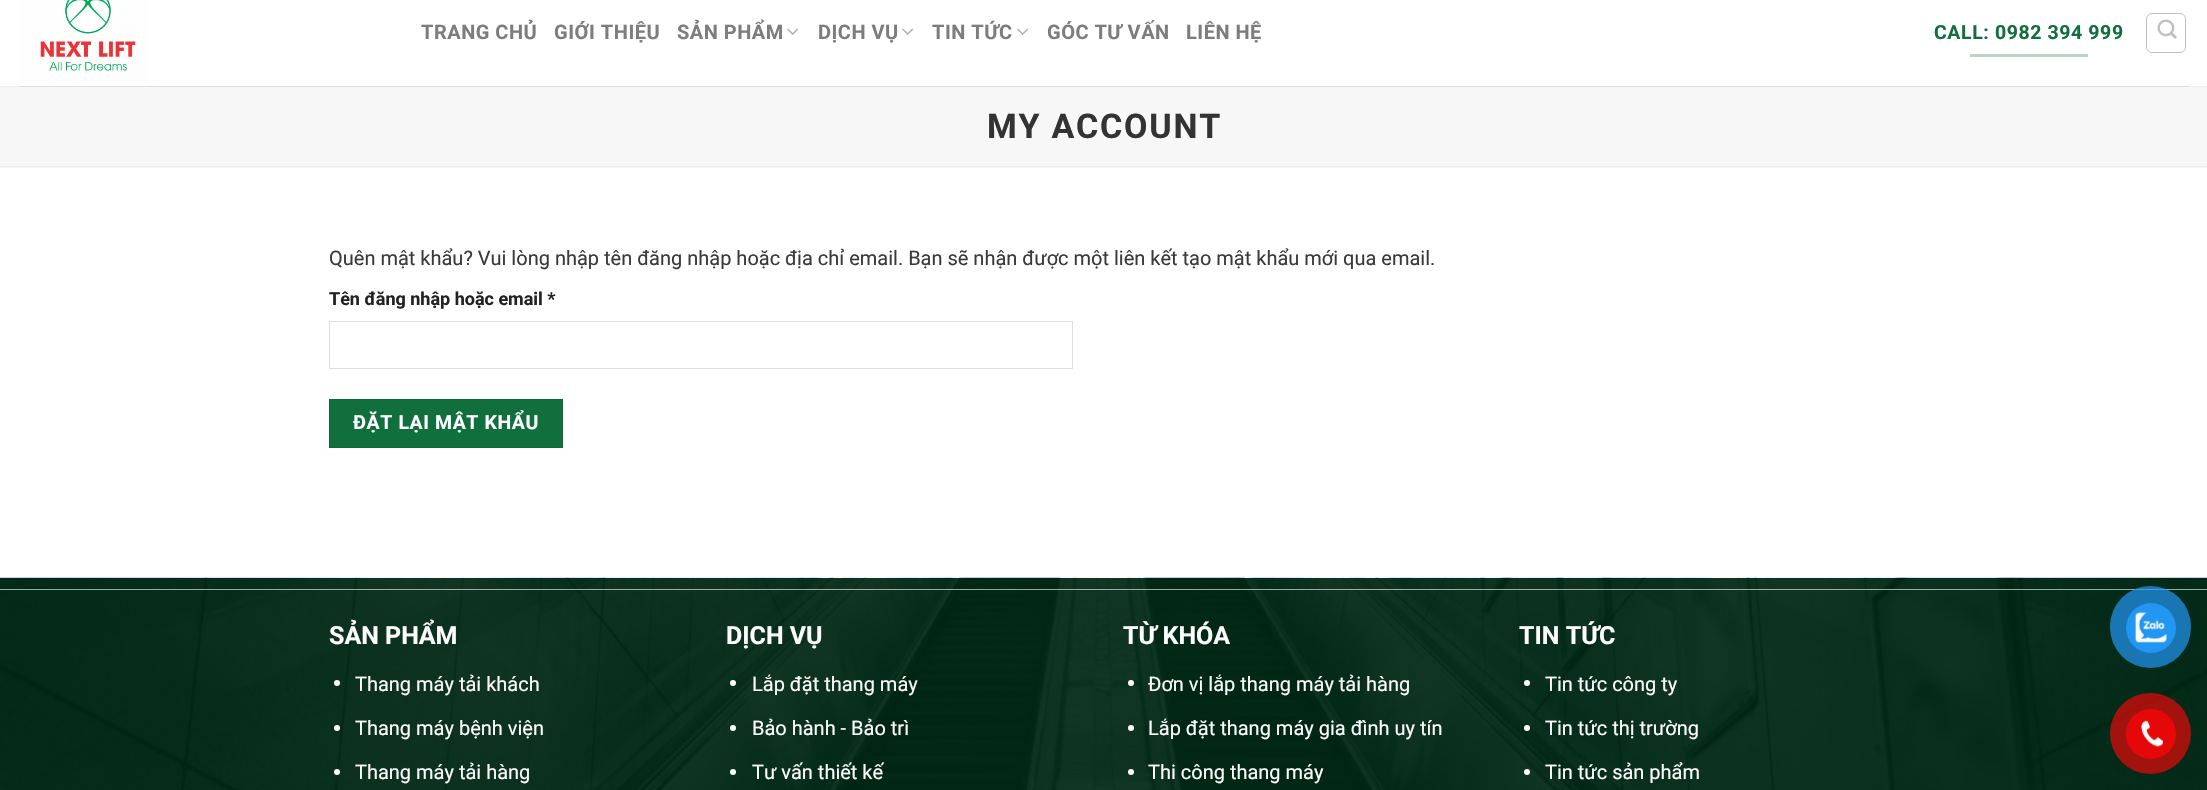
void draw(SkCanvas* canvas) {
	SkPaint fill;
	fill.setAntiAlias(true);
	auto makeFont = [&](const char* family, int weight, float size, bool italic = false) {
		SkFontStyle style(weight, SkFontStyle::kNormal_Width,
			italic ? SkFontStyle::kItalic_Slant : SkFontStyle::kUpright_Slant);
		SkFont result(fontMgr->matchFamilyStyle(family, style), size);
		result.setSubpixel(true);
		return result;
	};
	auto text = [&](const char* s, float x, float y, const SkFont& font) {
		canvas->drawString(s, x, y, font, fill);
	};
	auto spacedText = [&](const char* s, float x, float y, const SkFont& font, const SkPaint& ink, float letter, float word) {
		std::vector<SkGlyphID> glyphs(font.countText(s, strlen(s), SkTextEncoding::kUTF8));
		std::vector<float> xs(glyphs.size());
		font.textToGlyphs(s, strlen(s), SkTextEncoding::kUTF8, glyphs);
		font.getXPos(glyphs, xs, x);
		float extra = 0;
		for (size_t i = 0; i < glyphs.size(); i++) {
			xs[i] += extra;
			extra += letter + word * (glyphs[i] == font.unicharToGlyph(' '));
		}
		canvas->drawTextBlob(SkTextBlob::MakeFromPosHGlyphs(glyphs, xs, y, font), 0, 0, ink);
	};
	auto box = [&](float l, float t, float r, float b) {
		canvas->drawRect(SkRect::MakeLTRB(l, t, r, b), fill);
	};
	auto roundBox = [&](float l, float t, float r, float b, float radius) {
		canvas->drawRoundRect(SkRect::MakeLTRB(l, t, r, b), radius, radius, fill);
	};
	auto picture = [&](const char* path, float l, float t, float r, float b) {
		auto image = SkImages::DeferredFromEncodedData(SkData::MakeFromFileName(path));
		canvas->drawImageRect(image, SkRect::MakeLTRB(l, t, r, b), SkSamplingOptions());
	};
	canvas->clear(0xFFFFFFFF);
	fill.setColor(0xFFECECEC);
	box(0, 86, 2207, 87);
	picture("image0.png", 19, 0, 156, 87);
	picture("image1.png", 787, 28, 799, 35);
	picture("image1.png", 902, 28, 914, 35);
	picture("image1.png", 1017, 28, 1029, 35);
	fill.setColor(0xFFB8D4C5);
	box(1970, 54, 2088, 57);
	fill.setStyle(SkPaint::kStroke_Style);
	fill.setStrokeWidth(1);
	fill.setColor(0xFFC0C0C0);
	canvas->drawRoundRect(SkRect::MakeLTRB(2146.5f, 13.5f, 2185.5f, 52.5f), 5.5f, 5.5f, fill);
	picture("image2.png", 2157, 19, 2177, 39);
	fill.setStyle(SkPaint::kFill_Style);
	fill.setColor(0x1A3A3A3A);
	box(19, 86, 2189, 87);
	fill.setColor(0xFFF7F7F7);
	box(0, 87, 2207, 168);
	fill.setColor(0xFFECECEC);
	box(0, 166, 2207, 167);
	fill.setStyle(SkPaint::kStroke_Style);
	fill.setColor(0xFFDDDDDD);
	canvas->drawRect(SkRect::MakeLTRB(329.5f, 321.5f, 1072.5f, 368.5f), fill);
	fill.setStyle(SkPaint::kFill_Style);
	fill.setColor(0xFF116F3D);
	canvas->drawRect(SkRect::MakeLTRB(329.5f, 399.5f, 562.5f, 447.5f), fill);
	fill.setStyle(SkPaint::kStroke_Style);
	fill.setColor(0xFF10693A);
	canvas->drawRect(SkRect::MakeLTRB(329.5f, 399.5f, 562.5f, 447.5f), fill);
	picture("image3.png", 0, 577, 2207, 790);
	fill.setStyle(SkPaint::kFill_Style);
	fill.setColor(0x99FFFFFF);
	box(0, 589, 2207, 590);
	fill.setColor(0xFFFFFFFF);
	canvas->drawCircle(337, 683, 3, fill);
	canvas->drawCircle(337, 728, 3, fill);
	canvas->drawCircle(337, 772, 3, fill);
	canvas->drawCircle(733, 683, 3, fill);
	canvas->drawCircle(733, 728, 3, fill);
	canvas->drawCircle(733, 772, 3, fill);
	canvas->drawCircle(1131, 683, 3, fill);
	canvas->drawCircle(1131, 728, 3, fill);
	canvas->drawCircle(1131, 772, 3, fill);
	canvas->drawCircle(1527, 683, 3, fill);
	canvas->drawCircle(1527, 728, 3, fill);
	canvas->drawCircle(1527, 772, 3, fill);
	fill.setColor(0xB32196F3);
	roundBox(2110, 586, 2191, 668, 40.5f);
	fill.setColor(0xFF2196F3);
	canvas->drawCircle(2151, 628, 25, fill);
	picture("image4.png", 2134, 612, 2167, 643);
	fill.setColor(0xB3E60808);
	canvas->drawCircle(2150.5f, 733.5f, 40.5f, fill);
	fill.setColor(0xFFE60808);
	canvas->drawCircle(2151, 734, 25, fill);
	picture("image5.png", 2141, 720, 2163, 747);
	auto font1 = makeFont("Roboto", 700, 20);
	fill.setColor(0xFF7D7D7D);
	spacedText("TRANG CHỦ", 421, 39, font1, fill, 0.5f, 0);
	spacedText("GIỚI THIỆU", 554, 39, font1, fill, 0.5f, 0);
	spacedText("SẢN PHẨM", 677, 39, font1, fill, 0.5f, 0);
	spacedText("DỊCH VỤ", 818, 39, font1, fill, 0.5f, 0);
	spacedText("TIN TỨC", 932, 39, font1, fill, 0.5f, 0);
	spacedText("GÓC TƯ VẤN", 1047, 39, font1, fill, 0.5f, 0);
	spacedText("LIÊN HỆ", 1186, 39, font1, fill, 0.5f, 0);
	auto font2 = makeFont("Roboto", 700, 19.5f);
	fill.setColor(0xFF116F3D);
	spacedText("CALL: 0982 394 999", 1934, 39, font2, fill, 0.6f, 0);
	auto font3 = makeFont("Roboto", 700, 34);
	fill.setColor(0xFF333333);
	spacedText("MY ACCOUNT", 987, 138, font3, fill, 1.75f, 0);
	auto font4 = makeFont("Roboto", 400, 20);
	fill.setColor(0xFF3A3A3A);
	text("Quên mật khẩu? Vui lòng nhập tên đăng nhập hoặc địa chỉ email. Bạn sẽ nhận được một liên kết tạo mật khẩu mới qua email.", 329, 265, font4);
	auto font5 = makeFont("Roboto", 700, 18);
	fill.setColor(0xFF222222);
	text("Tên đăng nhập hoặc email *", 329, 305, font5);
	fill.setColor(0xFFFFFFFF);
	spacedText("ĐẶT LẠI MẬT KHẨU", 353, 429, font2, fill, 0.6f, 0);
	auto font6 = makeFont("Roboto", 700, 25);
	text("SẢN PHẨM", 329, 644, font6);
	text("Thang máy tải khách", 355, 691, font4);
	text("Thang máy bệnh viện", 355, 735, font4);
	text("Thang máy tải hàng", 355, 779, font4);
	text("DỊCH VỤ", 726, 644, font6);
	text("Lắp đặt thang máy", 752, 691, font4);
	text("Bảo hành - Bảo trì", 752, 735, font4);
	text("Tư vấn thiết kế", 752, 779, font4);
	text("TỪ KHÓA", 1123, 644, font6);
	text("Đơn vị lắp thang máy tải hàng", 1148, 691, font4);
	text("Lắp đặt thang máy gia đình uy tín", 1148, 735, font4);
	text("Thi công thang máy", 1148, 779, font4);
	text("TIN TỨC", 1519, 644, font6);
	text("Tin tức công ty", 1545, 691, font4);
	text("Tin tức thị trường", 1545, 735, font4);
	text("Tin tức sản phẩm", 1545, 779, font4);
}
